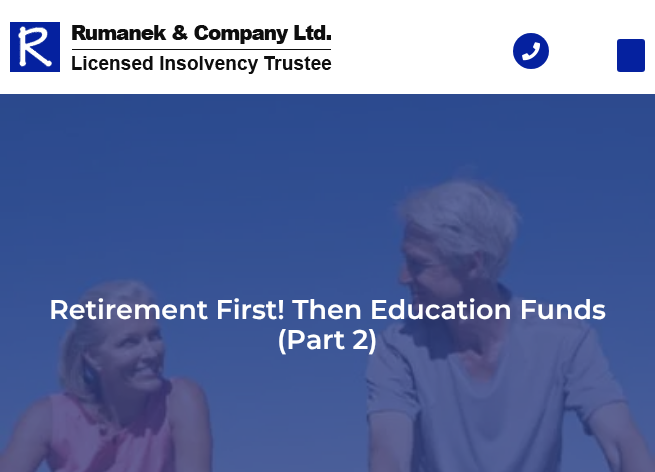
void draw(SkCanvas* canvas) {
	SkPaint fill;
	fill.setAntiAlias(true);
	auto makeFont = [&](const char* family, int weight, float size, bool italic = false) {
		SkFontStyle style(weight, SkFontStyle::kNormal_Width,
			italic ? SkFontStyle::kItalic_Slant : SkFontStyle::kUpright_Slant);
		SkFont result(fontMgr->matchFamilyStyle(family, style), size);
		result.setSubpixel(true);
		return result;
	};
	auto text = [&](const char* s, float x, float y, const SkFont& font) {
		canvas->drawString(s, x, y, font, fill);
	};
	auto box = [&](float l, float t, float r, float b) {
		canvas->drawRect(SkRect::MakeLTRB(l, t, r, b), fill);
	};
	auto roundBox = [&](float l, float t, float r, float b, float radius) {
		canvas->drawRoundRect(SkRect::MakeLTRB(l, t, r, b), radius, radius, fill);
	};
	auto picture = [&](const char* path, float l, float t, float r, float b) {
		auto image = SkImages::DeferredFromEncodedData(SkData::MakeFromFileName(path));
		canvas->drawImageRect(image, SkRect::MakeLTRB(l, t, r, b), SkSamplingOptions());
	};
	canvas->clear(0xFFFFFFFF);
	picture("image0.png", 10, 22, 332, 74);
	fill.setColor(0xFF05219F);
	canvas->drawCircle(531, 51, 18, fill);
	picture("image1.png", 522, 42, 540, 61);
	roundBox(617, 39, 645, 72, 3);
	fill.setColor(0xFF2F3F86);
	box(0, 94, 655, 472);
	picture("image2.png", 0, 94, 655, 472);
	auto font1 = makeFont("Montserrat", 600, 27);
	fill.setColor(0xFFFFFFFF);
	text("Retirement First! Then Education Funds", 49, 319, font1);
	text("(Part 2)", 277, 349, font1);
}
